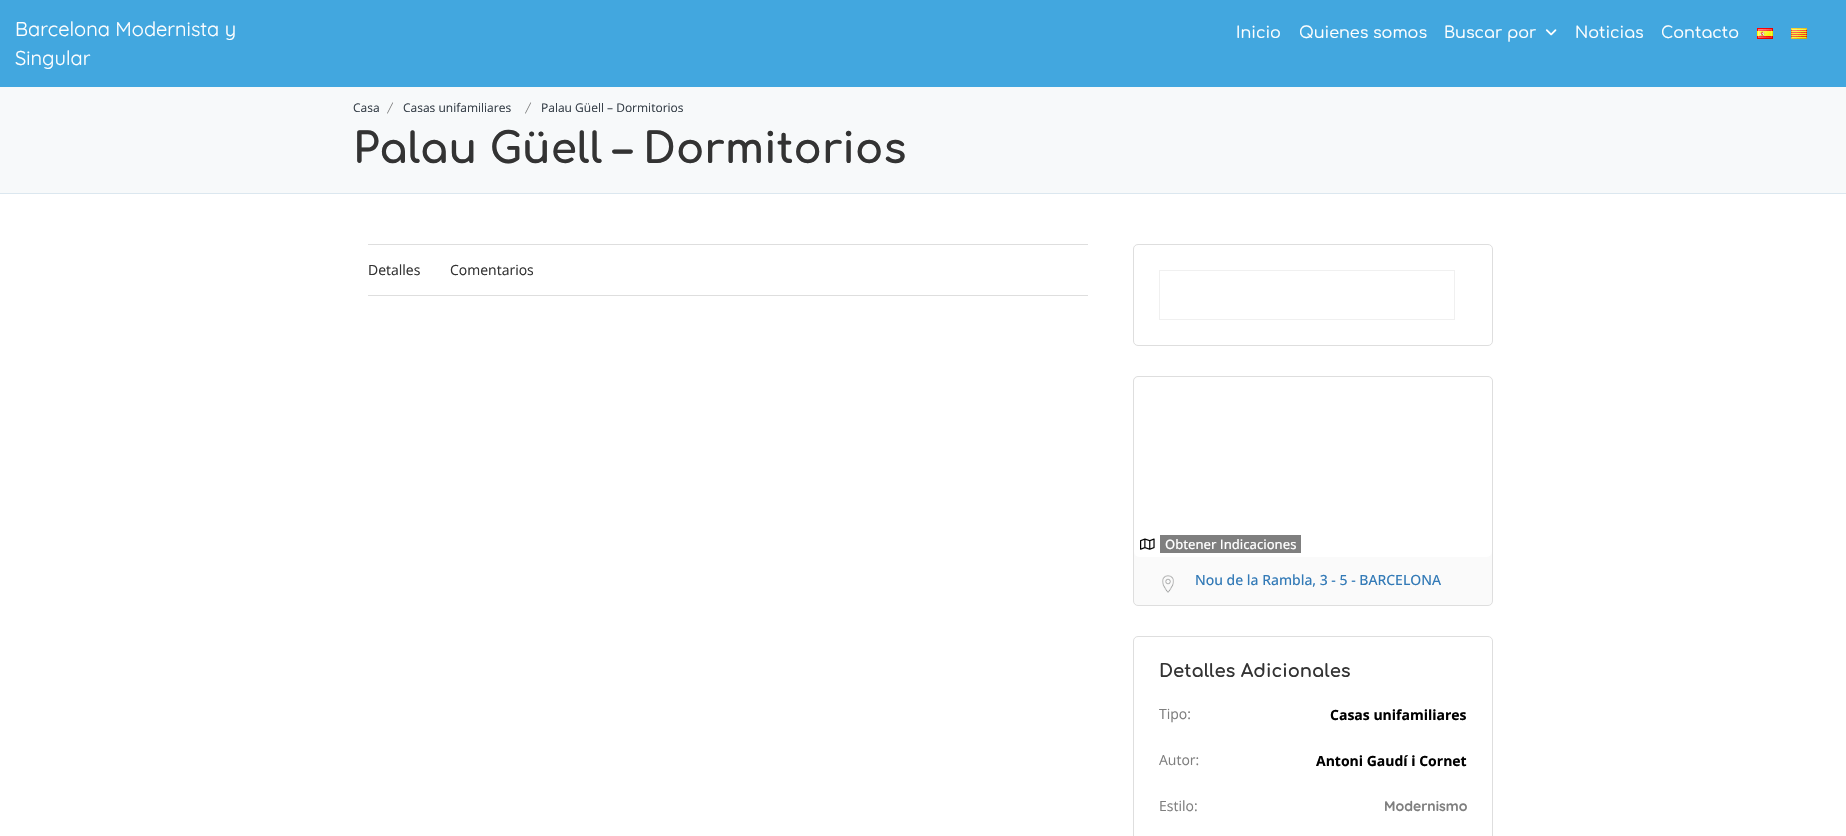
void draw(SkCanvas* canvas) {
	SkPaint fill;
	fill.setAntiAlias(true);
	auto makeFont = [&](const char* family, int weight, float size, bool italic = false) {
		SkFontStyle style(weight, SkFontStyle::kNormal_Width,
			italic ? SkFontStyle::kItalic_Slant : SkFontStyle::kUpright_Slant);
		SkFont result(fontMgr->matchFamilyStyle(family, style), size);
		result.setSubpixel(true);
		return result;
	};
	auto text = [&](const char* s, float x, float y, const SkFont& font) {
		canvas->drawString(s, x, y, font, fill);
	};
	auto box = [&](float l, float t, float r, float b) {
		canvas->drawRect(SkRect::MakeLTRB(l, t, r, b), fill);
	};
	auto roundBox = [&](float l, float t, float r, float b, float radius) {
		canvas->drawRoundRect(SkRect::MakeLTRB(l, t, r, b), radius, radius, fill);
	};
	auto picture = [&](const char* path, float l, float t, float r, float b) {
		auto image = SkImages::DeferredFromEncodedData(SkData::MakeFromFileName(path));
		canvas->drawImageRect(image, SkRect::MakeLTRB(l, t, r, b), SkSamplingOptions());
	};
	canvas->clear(0xFFF7F9FA);
	fill.setColor(0xFF42A7DF);
	box(0, 0, 1846, 87);
	picture("image0.png", 1545, 29, 1557, 36);
	picture("image1.png", 1757, 28, 1773, 39);
	picture("image2.png", 1791, 28, 1807, 39);
	fill.setColor(0xFFDBE7EF);
	box(0, 193, 1846, 194);
	fill.setColor(0xFFFFFFFF);
	box(0, 194, 1846, 836);
	fill.setColor(0xFFDEDEDE);
	box(368, 244, 1088, 245);
	box(368, 295, 1088, 296);
	fill.setStyle(SkPaint::kStroke_Style);
	fill.setStrokeWidth(1);
	canvas->drawRoundRect(SkRect::MakeLTRB(1133.5f, 244.5f, 1492.5f, 345.5f), 4.5f, 4.5f, fill);
	fill.setColor(0xFFF0F0F0);
	canvas->drawRect(SkRect::MakeLTRB(1159.5f, 270.5f, 1454.5f, 319.5f), fill);
	fill.setStyle(SkPaint::kFill_Style);
	fill.setColor(0xFFFAFAFA);
	canvas->drawRoundRect(SkRect::MakeLTRB(1133.5f, 376.5f, 1492.5f, 605.5f), 4.5f, 4.5f, fill);
	fill.setStyle(SkPaint::kStroke_Style);
	fill.setColor(0xFFDEDEDE);
	canvas->drawRoundRect(SkRect::MakeLTRB(1133.5f, 376.5f, 1492.5f, 605.5f), 4.5f, 4.5f, fill);
	canvas->save();
	canvas->clipPath(SkPathBuilder().moveTo(1138, 377).lineTo(1488, 377).cubicTo(1490, 377, 1492, 379, 1492, 381).lineTo(1492, 601).cubicTo(1492, 603, 1490, 605, 1488, 605).lineTo(1138, 605).cubicTo(1136, 605, 1134, 603, 1134, 601).lineTo(1134, 381).cubicTo(1134, 379, 1136, 377, 1138, 377).close().detach(), true);
	fill.setStyle(SkPaint::kFill_Style);
	fill.setColor(0xFFFFFFFF);
	roundBox(1134, 377, 1492, 557, 5);
	canvas->restore();
	picture("image3.png", 1140, 538, 1155, 550);
	fill.setColor(0xFF7F7F7F);
	box(1160, 535, 1301, 553);
	picture("image4.png", 1162, 575, 1174, 593);
	fill.setStyle(SkPaint::kStroke_Style);
	fill.setColor(0xFFDEDEDE);
	canvas->drawRoundRect(SkRect::MakeLTRB(1133.5f, 636.5f, 1492.5f, 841.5f), 4.5f, 4.5f, fill);
	auto font1 = makeFont("Quicksand", 400, 20);
	fill.setStyle(SkPaint::kFill_Style);
	fill.setColor(0xFFFFFFFF);
	text("Barcelona Modernista y", 15, 36, font1);
	text("Singular", 15, 65, font1);
	auto font2 = makeFont("Comfortaa", 400, 16);
	text("Inicio", 1236, 38, font2);
	text("Quienes somos", 1299, 38, font2);
	text("Buscar por", 1444, 38, font2);
	text("Noticias", 1575, 38, font2);
	text("Contacto", 1661, 38, font2);
	auto font3 = makeFont("Open Sans", 400, 12);
	fill.setColor(0xFF363F48);
	text("Casa", 353, 112, font3);
	auto font4 = makeFont("Quicksand", 400, 12);
	fill.setColor(0xFF7F7F7F);
	text("/", 387, 112, font4);
	fill.setColor(0xFF363F48);
	text("Casas unifamiliares", 403, 112, font3);
	fill.setColor(0xFF7F7F7F);
	text("/", 525, 112, font4);
	fill.setColor(0xFF363F48);
	text("Palau Güell – Dormitorios", 541, 112, font3);
	auto font5 = makeFont("Comfortaa", 700, 42);
	fill.setColor(0xFF333333);
	text("Palau Güell – Dormitorios", 353, 163, font5);
	auto font6 = makeFont("Open Sans", 400, 14);
	text("Detalles", 368, 275, font6);
	text("Comentarios", 450, 275, font6);
	auto font7 = makeFont("Open Sans", 500, 13);
	fill.setColor(0xFFFFFFFF);
	text("Obtener Indicaciones", 1165, 549, font7);
	auto font8 = makeFont("Open Sans", 500, 14);
	fill.setColor(0xFF337AB7);
	text("Nou de la Rambla, 3 - 5 - BARCELONA", 1195, 585, font8);
	auto font9 = makeFont("Comfortaa", 700, 18);
	fill.setColor(0xFF333333);
	text("Detalles Adicionales", 1159, 677, font9);
	fill.setColor(0xFF7F7F7F);
	text("Tipo:", 1159, 719, font6);
	auto font10 = makeFont("Open Sans", 700, 14);
	fill.setColor(0xFF000000);
	text("Casas unifamiliares", 1330, 720, font10);
	fill.setColor(0xFF7F7F7F);
	text("Autor:", 1159, 765, font6);
	fill.setColor(0xFF000000);
	text("Antoni Gaudí i Cornet", 1316, 766, font10);
	fill.setColor(0xFF7F7F7F);
	text("Estilo:", 1159, 811, font6);
	auto font11 = makeFont("Quicksand", 700, 14);
	text("Modernismo", 1384, 811, font11);
}
